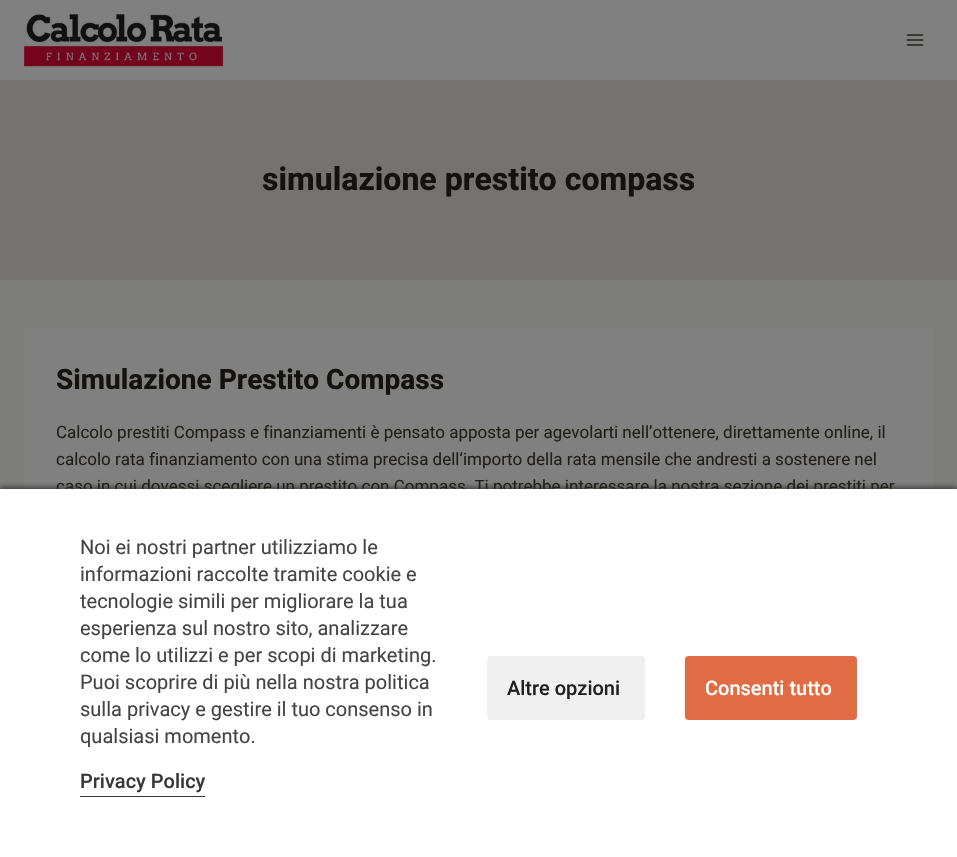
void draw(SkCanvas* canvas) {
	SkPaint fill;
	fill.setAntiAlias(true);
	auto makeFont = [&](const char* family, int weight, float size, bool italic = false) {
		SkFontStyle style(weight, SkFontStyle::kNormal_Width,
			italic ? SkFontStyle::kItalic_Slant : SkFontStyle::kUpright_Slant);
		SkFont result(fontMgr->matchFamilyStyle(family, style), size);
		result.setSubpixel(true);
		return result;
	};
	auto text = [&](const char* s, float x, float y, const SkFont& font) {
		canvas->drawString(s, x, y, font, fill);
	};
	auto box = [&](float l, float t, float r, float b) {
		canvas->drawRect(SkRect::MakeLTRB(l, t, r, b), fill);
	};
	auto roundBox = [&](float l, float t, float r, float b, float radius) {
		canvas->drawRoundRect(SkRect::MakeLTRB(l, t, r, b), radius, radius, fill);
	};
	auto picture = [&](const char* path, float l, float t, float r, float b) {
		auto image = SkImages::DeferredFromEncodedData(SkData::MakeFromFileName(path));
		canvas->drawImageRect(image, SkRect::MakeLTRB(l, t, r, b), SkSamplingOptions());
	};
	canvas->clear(0xFF7D7D7C);
	fill.setColor(0xFF808080);
	box(0, 0, 957, 80);
	picture("image0.png", 24, 14, 224, 67);
	picture("image1.png", 906, 34, 924, 46);
	fill.setColor(0xFF747371);
	box(0, 80, 957, 280);
	fill.setColor(0xFF808080);
	roundBox(24, 328, 933, 560, 4);
	fill.setColor(0x80000000);
	fill.setMaskFilter(SkMaskFilter::MakeBlur(kNormal_SkBlurStyle, 2.5f));
	canvas->drawRect(SkRect::MakeLTRB(0, 487, 957, 855), fill);
	fill.setMaskFilter(nullptr);
	auto font1 = makeFont("Heebo", 700, 32);
	fill.setColor(0xFF14120F);
	text("simulazione prestito compass", 262, 190, font1);
	auto font2 = makeFont("Heebo", 700, 28);
	text("Simulazione Prestito Compass", 56, 389, font2);
	auto font3 = makeFont("Heebo", 400, 17);
	fill.setColor(0xFF211F1A);
	text("Calcolo prestiti Compass e finanziamenti è pensato apposta per agevolarti nell’ottenere, direttamente online, il", 56, 438, font3);
	text("calcolo rata finanziamento con una stima precisa dell’importo della rata mensile che andresti a sostenere nel", 56, 465, font3);
	text("caso in cui dovessi scegliere un prestito con Compass. Ti potrebbe interessare la nostra sezione dei prestiti per", 56, 492, font3);
	fill.setColor(0xFFFFFFFF);
	box(0, 489, 957, 857);
	auto font4 = makeFont("Roboto", 400, 20);
	fill.setColor(0xFF444444);
	text("Noi ei nostri partner utilizziamo le", 80, 554, font4);
	text("informazioni raccolte tramite cookie e", 80, 581, font4);
	text("tecnologie simili per migliorare la tua", 80, 608, font4);
	text("esperienza sul nostro sito, analizzare", 80, 635, font4);
	text("come lo utilizzi e per scopi di marketing.", 80, 662, font4);
	text("Puoi scoprire di più nella nostra politica", 80, 689, font4);
	text("sulla privacy e gestire il tuo consenso in", 80, 716, font4);
	text("qualsiasi momento.", 80, 743, font4);
	auto font5 = makeFont("Roboto", 500, 20);
	fill.setColor(0xFF373737);
	text("Privacy Policy", 80, 788, font5);
	box(80, 796, 205, 797);
	fill.setColor(0xFFF0F0F0);
	roundBox(487, 656, 645, 720, 4);
	fill.setColor(0xFF212121);
	text("Altre opzioni", 507, 695, font5);
	fill.setColor(0xFFE16B43);
	roundBox(685, 656, 857, 720, 4);
	fill.setColor(0xFFFFFFFF);
	text("Consenti tutto", 705, 695, font5);
}
